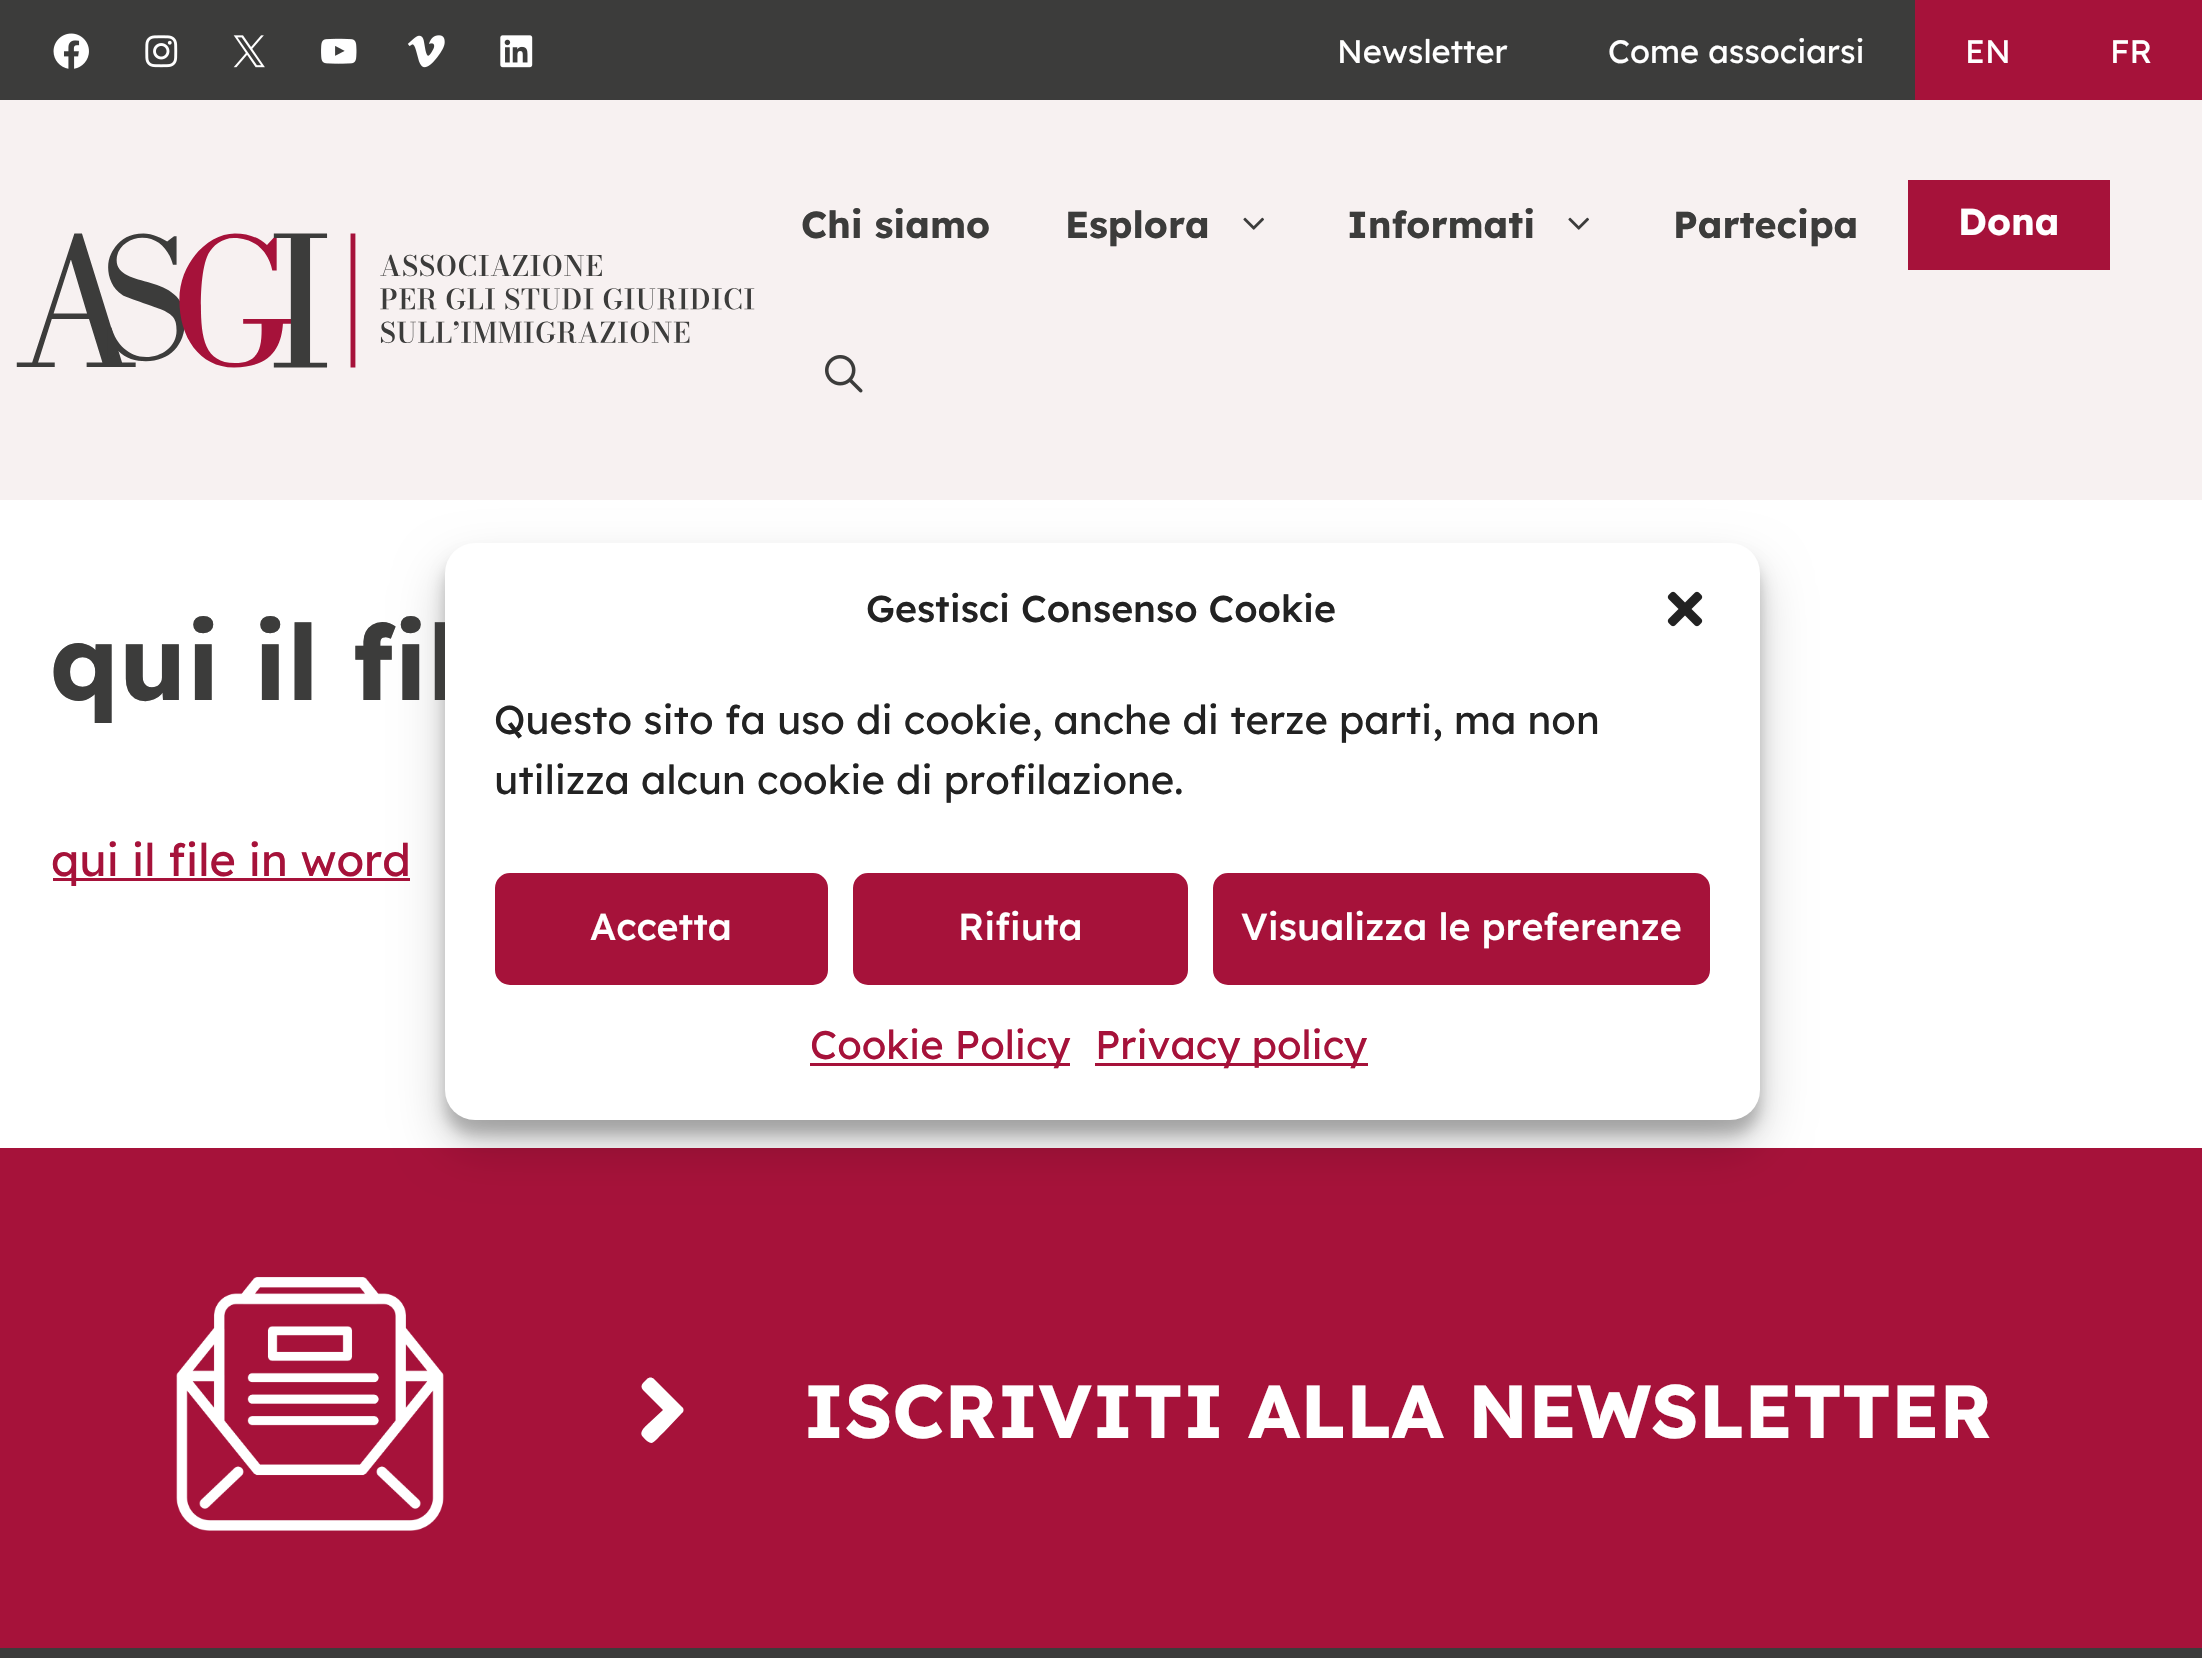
void draw(SkCanvas* canvas) {
	SkPaint fill;
	fill.setAntiAlias(true);
	auto makeFont = [&](const char* family, int weight, float size, bool italic = false) {
		SkFontStyle style(weight, SkFontStyle::kNormal_Width,
			italic ? SkFontStyle::kItalic_Slant : SkFontStyle::kUpright_Slant);
		SkFont result(fontMgr->matchFamilyStyle(family, style), size);
		result.setSubpixel(true);
		return result;
	};
	auto text = [&](const char* s, float x, float y, const SkFont& font) {
		canvas->drawString(s, x, y, font, fill);
	};
	auto box = [&](float l, float t, float r, float b) {
		canvas->drawRect(SkRect::MakeLTRB(l, t, r, b), fill);
	};
	auto roundBox = [&](float l, float t, float r, float b, float radius) {
		canvas->drawRoundRect(SkRect::MakeLTRB(l, t, r, b), radius, radius, fill);
	};
	auto picture = [&](const char* path, float l, float t, float r, float b) {
		auto image = SkImages::DeferredFromEncodedData(SkData::MakeFromFileName(path));
		canvas->drawImageRect(image, SkRect::MakeLTRB(l, t, r, b), SkSamplingOptions());
	};
	canvas->clear(0xFFFFFFFF);
	fill.setColor(0xFF3C3C3B);
	box(0, 0, 1915, 100);
	picture("image0.png", 53, 33, 89, 69);
	picture("image1.png", 145, 35, 178, 68);
	picture("image2.png", 233, 35, 265, 68);
	picture("image3.png", 321, 38, 357, 64);
	picture("image4.png", 407, 35, 445, 68);
	picture("image5.png", 500, 35, 533, 68);
	fill.setColor(0xFFA6123A);
	box(1915, 0, 2202, 100);
	fill.setColor(0xFFF7F1F1);
	box(0, 100, 2202, 500);
	picture("image6.png", 1243, 217, 1264, 230);
	picture("image6.png", 1568, 217, 1589, 230);
	fill.setColor(0xFFA6123A);
	box(1908, 180, 2110, 270);
	picture("image7.png", 825, 355, 863, 393);
	picture("image8.png", 16, 233, 755, 368);
	box(53, 878, 410, 881);
	box(0, 1148, 2202, 1648);
	fill.setColor(0x3B000000);
	fill.setMaskFilter(SkMaskFilter::MakeBlur(kNormal_SkBlurStyle, 7.5f));
	canvas->drawRoundRect(SkRect::MakeLTRB(445, 558, 1760, 1135), 30, 30, fill);
	fill.setMaskFilter(nullptr);
	fill.setColor(0x30000000);
	fill.setMaskFilter(SkMaskFilter::MakeBlur(kNormal_SkBlurStyle, 25));
	canvas->drawRoundRect(SkRect::MakeLTRB(445, 568, 1760, 1145), 30, 30, fill);
	fill.setMaskFilter(nullptr);
	picture("image10.png", 176, 1277, 444, 1531);
	fill.setColor(0xFFFFFFFF);
	canvas->drawPath(SkPathBuilder().moveTo(682, 1413).lineTo(664, 1432).cubicTo(653, 1442, 653, 1448, 643, 1437).cubicTo(638, 1432, 646, 1426, 649, 1423).lineTo(663, 1410).lineTo(643, 1390).cubicTo(641, 1388, 641, 1385, 643, 1383).lineTo(647, 1379).cubicTo(649, 1377, 652, 1377, 654, 1379).lineTo(682, 1407).cubicTo(684, 1408, 684, 1412, 682, 1413).close().detach(), fill);
	fill.setColor(0xFF3C3C3B);
	box(0, 1648, 2202, 1658);
	auto font1 = makeFont("Lexend", 400, 32.5f);
	fill.setColor(0xFFFFFFFF);
	text("Newsletter", 1337, 63, font1);
	text("Come associarsi", 1608, 63, font1);
	text("EN", 1965, 63, font1);
	text("FR", 2110, 63, font1);
	auto font2 = makeFont("Lexend", 700, 37.5f);
	fill.setColor(0xFF3C3C3B);
	text("Chi siamo", 801, 238, font2);
	text("Esplora", 1065, 238, font2);
	text("Informati", 1347, 238, font2);
	text("Partecipa", 1673, 238, font2);
	fill.setColor(0xFFFFFFFF);
	text("Dona", 1958, 235, font2);
	auto font3 = makeFont("Lexend", 700, 105);
	fill.setColor(0xFF3C3C3B);
	text("qui il fil", 50, 700, font3);
	auto font4 = makeFont("Lexend", 400, 45);
	fill.setColor(0xFFA6123A);
	text("qui il file in word", 51, 876, font4);
	fill.setColor(0xFFFFFFFF);
	roundBox(445, 543, 1760, 1120, 30);
	auto font5 = makeFont("Lexend", 500, 37.5f);
	fill.setColor(0xFF222222);
	text("Gestisci Consenso Cookie", 866, 622, font5);
	picture("image9.png", 1667, 591, 1703, 627);
	auto font6 = makeFont("Lexend", 400, 40);
	text("Questo sito fa uso di cookie, anche di terze parti, ma non", 494, 734, font6);
	text("utilizza alcun cookie di profilazione.", 494, 794, font6);
	fill.setColor(0xFFA6123A);
	canvas->drawRoundRect(SkRect::MakeLTRB(496.5f, 874.5f, 826.5f, 983.5f), 13.5f, 13.5f, fill);
	fill.setStyle(SkPaint::kStroke_Style);
	fill.setStrokeWidth(3);
	canvas->drawRoundRect(SkRect::MakeLTRB(496.5f, 874.5f, 826.5f, 983.5f), 13.5f, 13.5f, fill);
	fill.setStyle(SkPaint::kFill_Style);
	fill.setColor(0xFFFFFFFF);
	text("Accetta", 590, 940, font5);
	fill.setColor(0xFFA6123A);
	canvas->drawRoundRect(SkRect::MakeLTRB(854.5f, 874.5f, 1186.5f, 983.5f), 13.5f, 13.5f, fill);
	fill.setStyle(SkPaint::kStroke_Style);
	canvas->drawRoundRect(SkRect::MakeLTRB(854.5f, 874.5f, 1186.5f, 983.5f), 13.5f, 13.5f, fill);
	fill.setStyle(SkPaint::kFill_Style);
	fill.setColor(0xFFFFFFFF);
	text("Rifiuta", 958, 940, font5);
	fill.setColor(0xFFA6123A);
	canvas->drawRoundRect(SkRect::MakeLTRB(1214.5f, 874.5f, 1708.5f, 983.5f), 13.5f, 13.5f, fill);
	fill.setStyle(SkPaint::kStroke_Style);
	canvas->drawRoundRect(SkRect::MakeLTRB(1214.5f, 874.5f, 1708.5f, 983.5f), 13.5f, 13.5f, fill);
	fill.setStyle(SkPaint::kFill_Style);
	fill.setColor(0xFFFFFFFF);
	text("Visualizza le preferenze", 1241, 940, font5);
	fill.setColor(0xFFA6123A);
	box(810, 1063, 1070, 1066);
	text("Cookie Policy", 810, 1059, font6);
	box(1095, 1063, 1368, 1066);
	text("Privacy policy", 1095, 1059, font6);
	auto font7 = makeFont("Lexend", 700, 75);
	fill.setColor(0xFFFFFFFF);
	text("ISCRIVITI ALLA NEWSLETTER", 803, 1438, font7);
}
